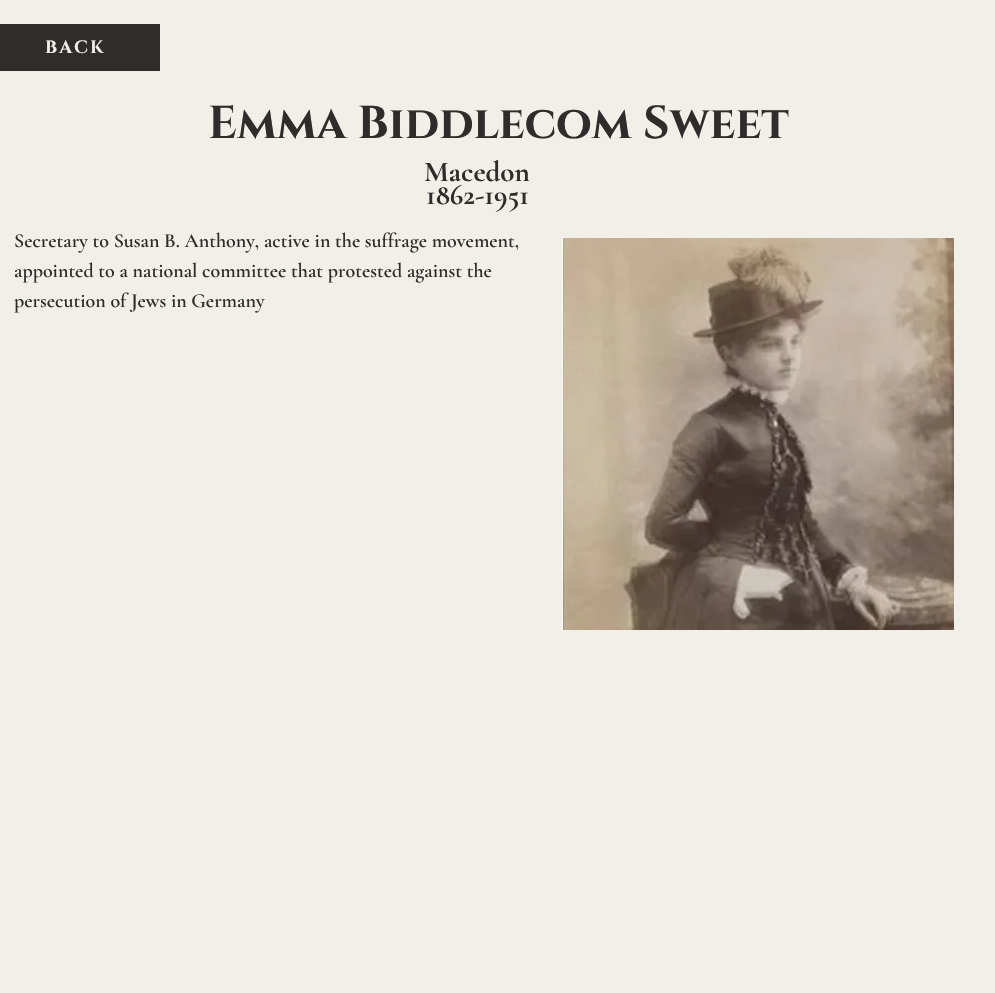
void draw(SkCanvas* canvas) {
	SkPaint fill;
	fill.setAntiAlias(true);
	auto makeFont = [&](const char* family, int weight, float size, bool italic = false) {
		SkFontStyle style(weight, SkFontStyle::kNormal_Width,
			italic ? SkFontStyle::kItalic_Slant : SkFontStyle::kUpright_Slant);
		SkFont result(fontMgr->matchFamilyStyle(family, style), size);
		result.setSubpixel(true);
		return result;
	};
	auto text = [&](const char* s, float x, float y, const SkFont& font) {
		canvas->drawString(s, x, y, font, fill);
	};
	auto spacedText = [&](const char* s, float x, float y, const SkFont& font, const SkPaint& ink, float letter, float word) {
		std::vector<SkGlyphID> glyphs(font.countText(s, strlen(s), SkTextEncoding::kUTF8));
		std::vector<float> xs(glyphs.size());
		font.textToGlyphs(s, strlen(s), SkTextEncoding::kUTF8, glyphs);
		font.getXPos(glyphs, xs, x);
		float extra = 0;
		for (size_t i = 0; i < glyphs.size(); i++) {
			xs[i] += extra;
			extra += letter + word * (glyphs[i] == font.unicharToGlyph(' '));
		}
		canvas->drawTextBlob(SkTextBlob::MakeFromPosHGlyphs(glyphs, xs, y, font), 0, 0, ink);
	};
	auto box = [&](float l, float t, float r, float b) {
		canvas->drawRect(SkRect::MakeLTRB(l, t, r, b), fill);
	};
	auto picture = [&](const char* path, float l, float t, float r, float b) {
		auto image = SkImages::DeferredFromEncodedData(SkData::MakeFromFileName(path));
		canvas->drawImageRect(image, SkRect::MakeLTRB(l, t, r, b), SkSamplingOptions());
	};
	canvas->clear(0xFFF2EEE8);
	fill.setColor(0xFF2E2D2B);
	box(0, 24, 160, 71);
	picture("image0.png", 562, 238, 954, 630);
	auto font1 = makeFont("Cinzel", 700, 18);
	fill.setColor(0xFFF2EEE8);
	spacedText("BACK", 45, 53, font1, fill, 2, 0);
	auto font2 = makeFont("Cormorant Garamond", 700, 29);
	fill.setColor(0xFF2E2D2B);
	text("Macedon", 424, 181, font2);
	text("1862-1951", 426, 204, font2);
	auto font3 = makeFont("Cormorant Garamond", 600, 20);
	text("Secretary to Susan B. Anthony, active in the suffrage movement,", 14, 247, font3);
	text("appointed to a national committee that protested against the", 14, 277, font3);
	text("persecution of Jews in Germany", 14, 307, font3);
	auto font4 = makeFont("Cinzel", 700, 46);
	text("Emma Biddlecom Sweet", 208, 138, font4);
}
